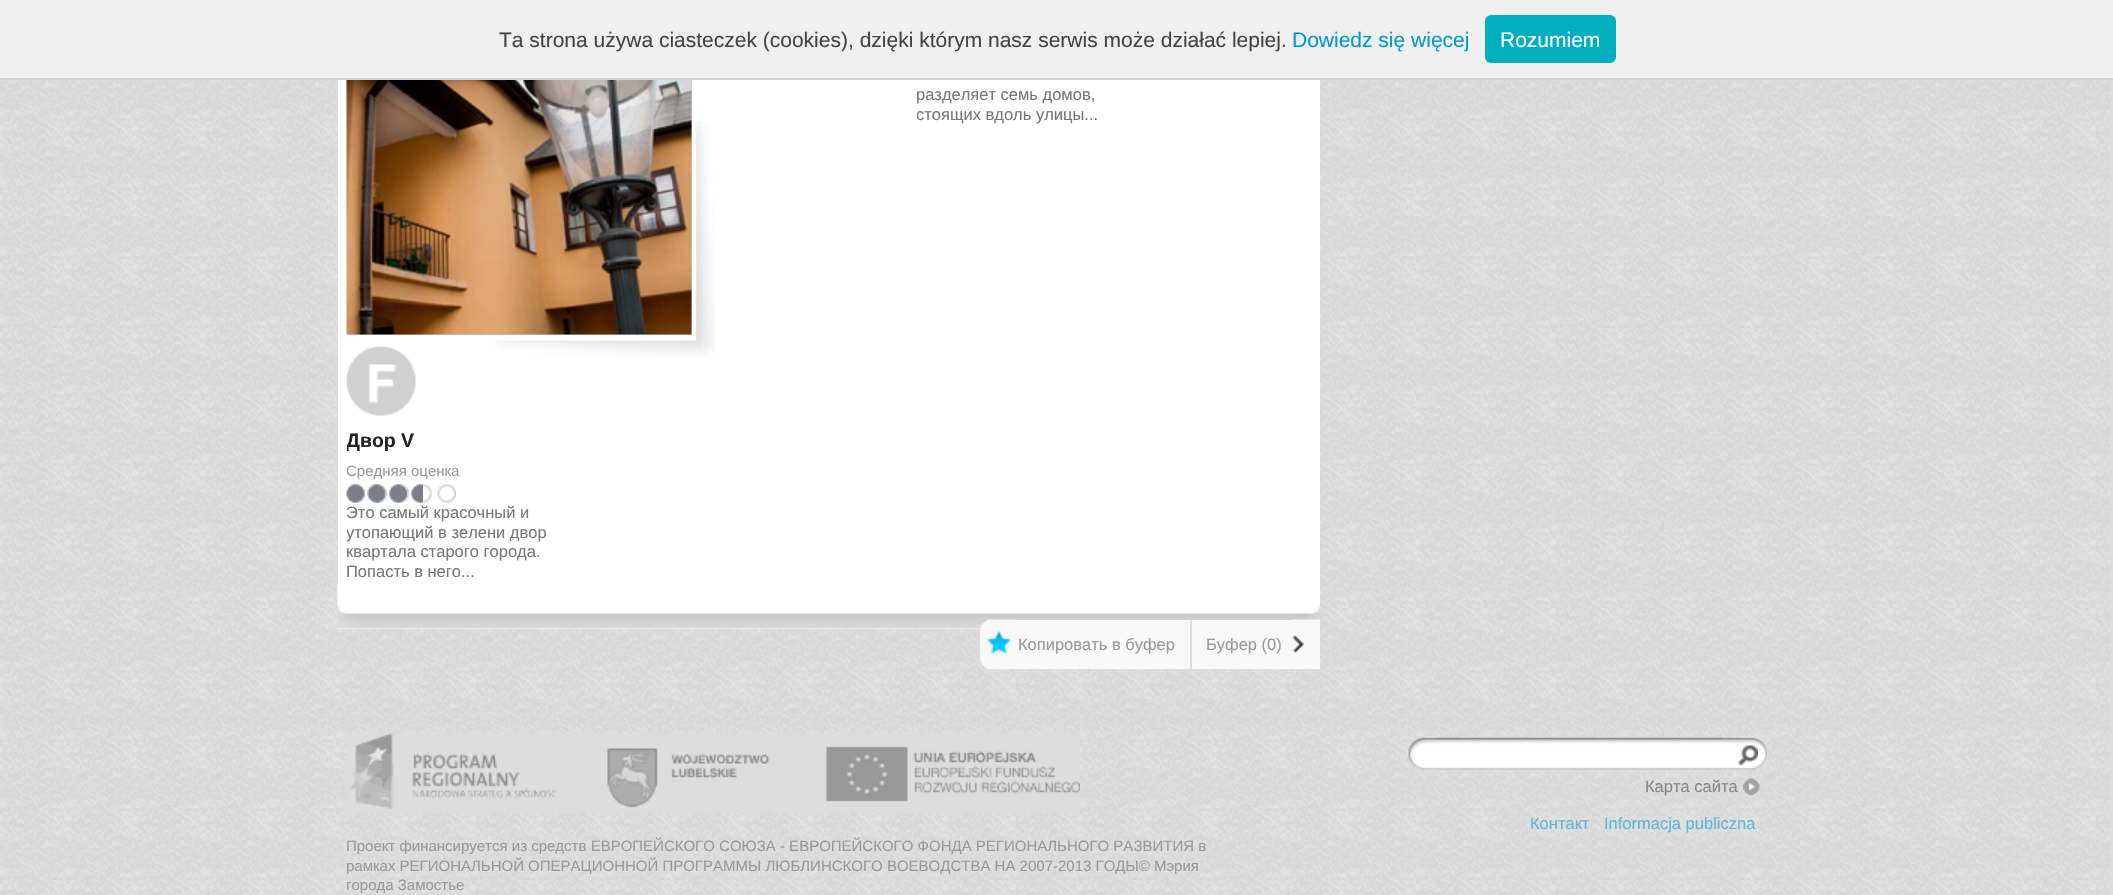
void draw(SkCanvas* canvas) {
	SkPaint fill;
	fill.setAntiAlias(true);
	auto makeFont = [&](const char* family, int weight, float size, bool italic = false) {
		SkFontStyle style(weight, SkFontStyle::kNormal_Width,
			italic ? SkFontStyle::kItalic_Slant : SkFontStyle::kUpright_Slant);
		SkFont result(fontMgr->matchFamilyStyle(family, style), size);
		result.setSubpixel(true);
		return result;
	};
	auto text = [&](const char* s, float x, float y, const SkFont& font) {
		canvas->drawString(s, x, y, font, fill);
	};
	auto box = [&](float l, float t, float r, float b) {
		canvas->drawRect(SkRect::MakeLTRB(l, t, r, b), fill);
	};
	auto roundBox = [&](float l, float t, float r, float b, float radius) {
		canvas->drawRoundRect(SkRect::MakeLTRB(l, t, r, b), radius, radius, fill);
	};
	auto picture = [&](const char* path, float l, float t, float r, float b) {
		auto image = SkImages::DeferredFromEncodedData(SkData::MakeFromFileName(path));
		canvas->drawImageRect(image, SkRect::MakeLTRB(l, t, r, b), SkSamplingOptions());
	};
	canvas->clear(0xFFDDDDDD);
	picture("image0.png", 0, 80, 2110, 895);
	fill.setColor(0xFFEFEFEF);
	box(0, 0, 2113, 78);
	fill.setColor(0xFFD3D0D0);
	box(0, 78, 2113, 80);
	fill.setColor(0xFF00AFBF);
	roundBox(1485, 15, 1616, 63, 6);
	fill.setColor(0xFFFFFFFF);
	box(338, 608, 1319, 629);
	picture("image1.png", 337, 583, 1320, 629);
	box(338, 80, 1320, 606);
	picture("image2.png", 495, 121, 715, 357);
	fill.setColor(0xFFCCCCCC);
	box(347, 80, 692, 335);
	picture("image3.png", 346, 80, 692, 335);
	picture("image4.png", 346, 346, 416, 416);
	picture("image5.png", 346, 484, 456, 503);
	picture("image6.png", 346, 484, 423, 503);
	fill.setColor(0xFFF8F8F8);
	roundBox(980, 620, 1320, 669, 11);
	picture("image7.png", 987, 619, 1016, 669);
	picture("image8.png", 987, 631, 1012, 654);
	fill.setColor(0xFFDDDDDD);
	box(1190, 620, 1192, 669);
	picture("image9.png", 1291, 619, 1320, 669);
	picture("image10.png", 1435, 737, 1767, 770);
	picture("image11.png", 1408, 737, 1722, 770);
	picture("image12.png", 1738, 745, 1758, 766);
	picture("image13.png", 1743, 778, 1760, 795);
	picture("image14.png", 347, 733, 1080, 813);
	auto font1 = makeFont("Liberation Sans", 400, 21);
	fill.setColor(0xFF444444);
	text("Ta strona używa ciasteczek (cookies), dzięki którym nasz serwis może działać lepiej.", 499, 47, font1);
	fill.setColor(0xFF0099CC);
	text("Dowiedz się więcej", 1292, 47, font1);
	fill.setColor(0xFFFFFFFF);
	text("Rozumiem", 1500, 47, font1);
	canvas->save();
	canvas->clipRect(SkRect::MakeLTRB(917, 0, 1142, 125));
	auto font2 = makeFont("Liberation Sans", 400, 16.5f);
	fill.setColor(0xFF777777);
	text("разделяет семь домов,", 916, 100, font2);
	text("стоящих вдоль улицы...", 916, 120, font2);
	canvas->restore();
	canvas->save();
	canvas->clipRect(SkRect::MakeLTRB(347, 347, 572, 582));
	auto font3 = makeFont("Liberation Sans", 700, 19.5f);
	fill.setColor(0xFF222222);
	text("Двор V", 346, 447, font3);
	auto font4 = makeFont("Liberation Sans", 400, 15);
	fill.setColor(0xFF999999);
	text("Средняя оценка", 346, 476, font4);
	canvas->restore();
	fill.setColor(0xFF777777);
	text("Это самый красочный и", 346, 518, font2);
	canvas->save();
	canvas->clipRect(SkRect::MakeLTRB(347, 347, 572, 582));
	text("утопающий в зелени двор", 346, 538, font2);
	text("квартала старого города.", 346, 557, font2);
	canvas->restore();
	text("Попасть в него...", 346, 577, font2);
	fill.setColor(0xFF999999);
	text("Копировать в буфер", 1018, 650, font2);
	text("Буфер (0)", 1206, 650, font2);
	fill.setColor(0xFF888888);
	text("Карта сайта", 1645, 792, font2);
	fill.setColor(0xFF5DB6DB);
	text("Контакт", 1530, 829, font2);
	text("Informacja publiczna", 1604, 829, font2);
	fill.setColor(0xFF999999);
	text("Проект финансируется из средств ЕВРОПЕЙСКОГО СОЮЗА - ЕВРОПЕЙСКОГО ФОНДА РЕГИОНАЛЬНОГО РАЗВИТИЯ в", 346, 851, font4);
	text("рамках РЕГИОНАЛЬНОЙ ОПЕРАЦИОННОЙ ПРОГРАММЫ ЛЮБЛИНСКОГО ВОЕВОДСТВА НА 2007-2013 ГОДЫ© Мэрия", 346, 871, font4);
	text("города Замостье", 346, 890, font4);
}
